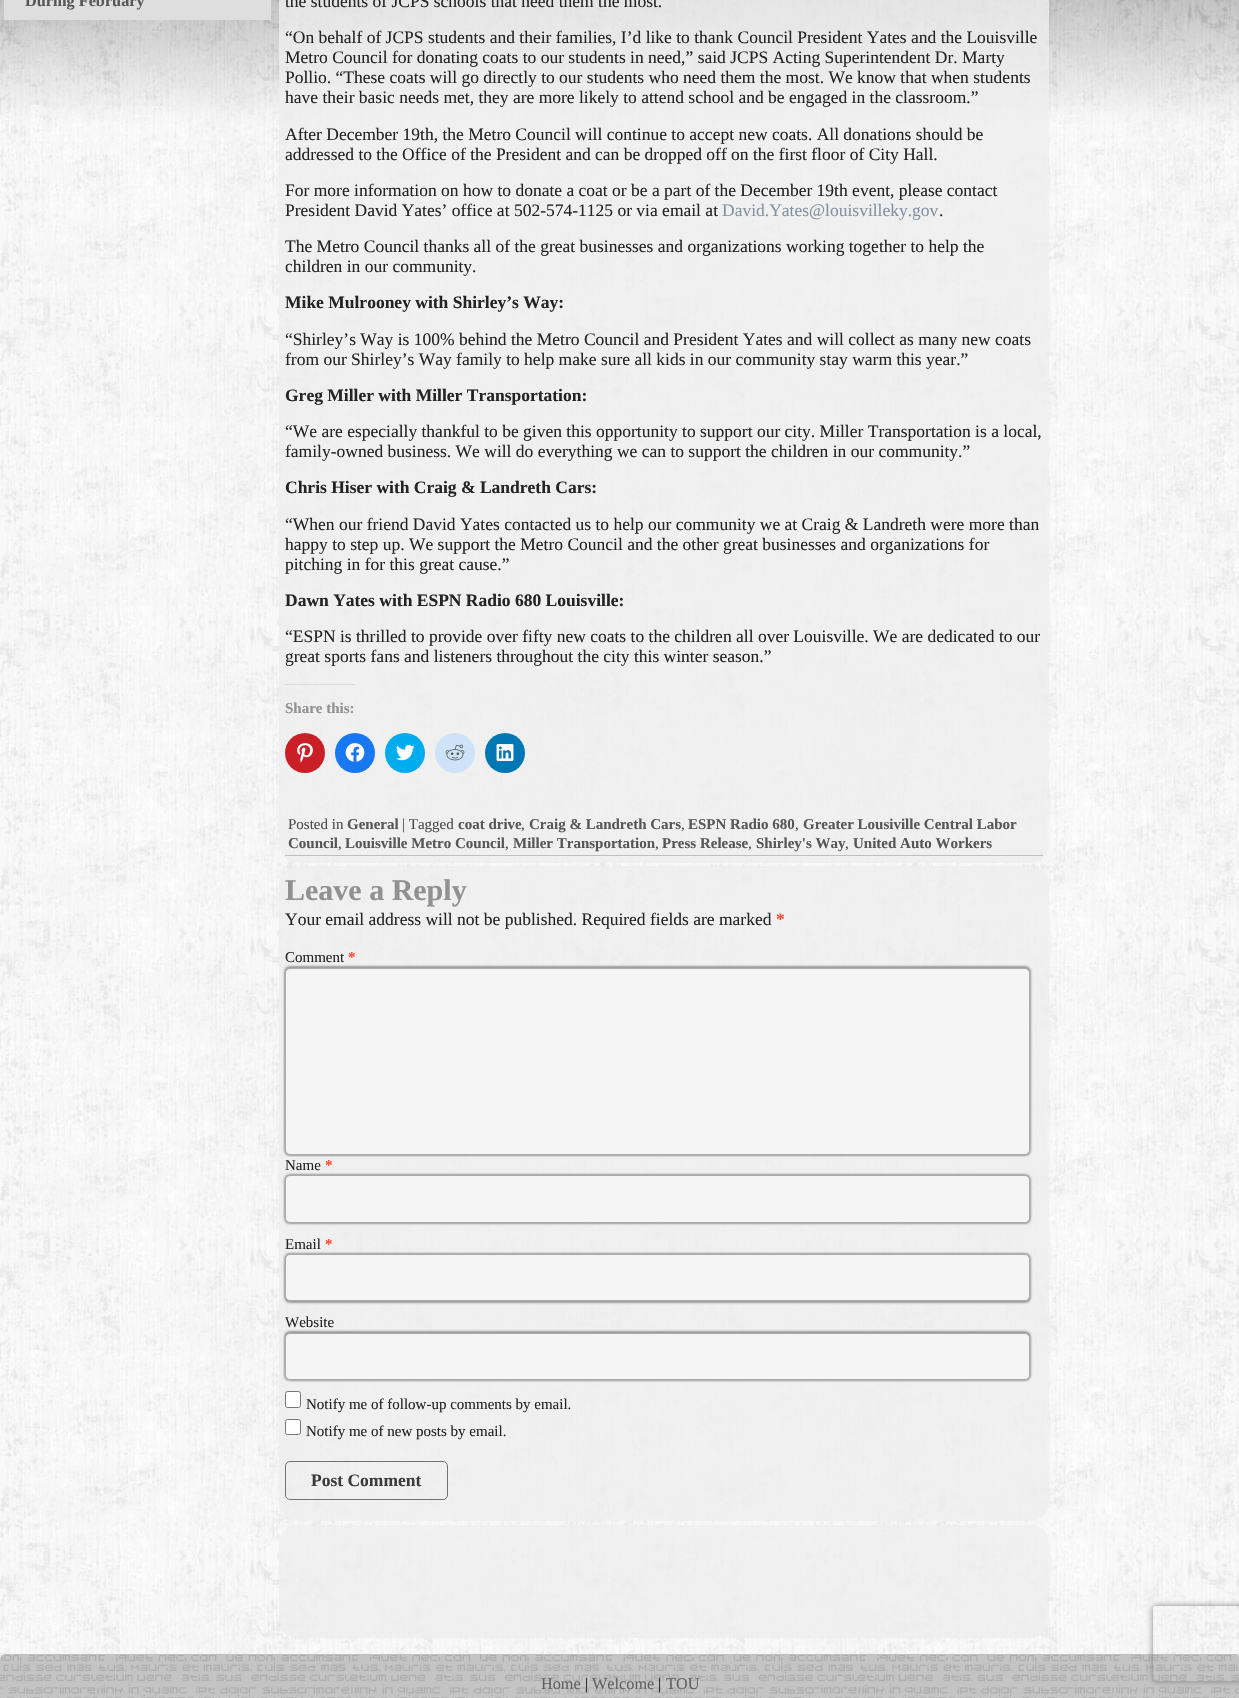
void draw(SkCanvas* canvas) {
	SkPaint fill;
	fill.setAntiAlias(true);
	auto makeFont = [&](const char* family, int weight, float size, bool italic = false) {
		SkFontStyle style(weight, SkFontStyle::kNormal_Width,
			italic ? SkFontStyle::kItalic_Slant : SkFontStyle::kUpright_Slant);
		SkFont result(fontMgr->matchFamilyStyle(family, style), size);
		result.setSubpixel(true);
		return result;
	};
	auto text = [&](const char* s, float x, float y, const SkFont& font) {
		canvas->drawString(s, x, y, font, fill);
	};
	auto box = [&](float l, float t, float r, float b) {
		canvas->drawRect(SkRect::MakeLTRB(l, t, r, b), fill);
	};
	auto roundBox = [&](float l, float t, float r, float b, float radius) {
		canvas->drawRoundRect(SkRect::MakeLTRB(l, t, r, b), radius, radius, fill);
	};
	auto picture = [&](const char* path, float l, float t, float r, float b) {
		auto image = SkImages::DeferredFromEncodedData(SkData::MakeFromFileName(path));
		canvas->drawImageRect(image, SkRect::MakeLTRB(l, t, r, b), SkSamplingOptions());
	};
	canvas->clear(0xFFFFFFFF);
	picture("image0.png", 0, 0, 1239, 1660);
	fill.setColor(0xFFDEDEDE);
	box(4, 0, 271, 20);
	fill.setColor(0xCCEDEDED);
	roundBox(279, -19, 1049, 863, 19);
	fill.setColor(0xFFDCDCDE);
	box(285, 684, 355, 685);
	fill.setColor(0xFFCA1F27);
	canvas->drawCircle(305, 753, 20, fill);
	picture("image1.png", 297, 743, 313, 763);
	fill.setColor(0xFF1877F2);
	canvas->drawCircle(355, 753, 20, fill);
	picture("image2.png", 345, 743, 365, 762);
	fill.setColor(0xFF00ACEE);
	canvas->drawCircle(405, 753, 20, fill);
	picture("image3.png", 396, 745, 415, 761);
	fill.setColor(0xFFCEE3F8);
	canvas->drawCircle(455, 753, 20, fill);
	picture("image4.png", 445, 744, 465, 761);
	fill.setColor(0xFF0077B5);
	canvas->drawCircle(505, 753, 20, fill);
	picture("image5.png", 496, 744, 514, 761);
	fill.setColor(0xFFBFBFBF);
	box(285, 855, 1043, 856);
	fill.setColor(0xCCEDEDED);
	roundBox(279, 866, 1049, 1521, 19);
	fill.setColor(0x59000000);
	fill.setMaskFilter(SkMaskFilter::MakeBlur(kNormal_SkBlurStyle, 1));
	canvas->drawRoundRect(SkRect::MakeLTRB(284, 966, 1031, 1156), 6, 6, fill);
	fill.setMaskFilter(nullptr);
	fill.setColor(0xFFF5F5F5);
	canvas->drawRoundRect(SkRect::MakeLTRB(285.5f, 968.5f, 1029.5f, 1154.5f), 4.5f, 4.5f, fill);
	fill.setStyle(SkPaint::kStroke_Style);
	fill.setStrokeWidth(1);
	fill.setColor(0xFFABABAB);
	canvas->drawRoundRect(SkRect::MakeLTRB(285.5f, 968.5f, 1029.5f, 1154.5f), 4.5f, 4.5f, fill);
	fill.setStyle(SkPaint::kFill_Style);
	fill.setColor(0x59000000);
	fill.setMaskFilter(SkMaskFilter::MakeBlur(kNormal_SkBlurStyle, 1));
	canvas->drawRoundRect(SkRect::MakeLTRB(284, 1174, 1031, 1224), 6, 6, fill);
	fill.setMaskFilter(nullptr);
	fill.setColor(0xFFF5F5F5);
	canvas->drawRoundRect(SkRect::MakeLTRB(285.5f, 1175.5f, 1029.5f, 1222.5f), 4.5f, 4.5f, fill);
	fill.setStyle(SkPaint::kStroke_Style);
	fill.setColor(0xFFABABAB);
	canvas->drawRoundRect(SkRect::MakeLTRB(285.5f, 1175.5f, 1029.5f, 1222.5f), 4.5f, 4.5f, fill);
	fill.setStyle(SkPaint::kFill_Style);
	fill.setColor(0x59000000);
	fill.setMaskFilter(SkMaskFilter::MakeBlur(kNormal_SkBlurStyle, 1));
	canvas->drawRoundRect(SkRect::MakeLTRB(284, 1253, 1031, 1303), 6, 6, fill);
	fill.setMaskFilter(nullptr);
	fill.setColor(0xFFF5F5F5);
	canvas->drawRoundRect(SkRect::MakeLTRB(285.5f, 1254.5f, 1029.5f, 1300.5f), 4.5f, 4.5f, fill);
	fill.setStyle(SkPaint::kStroke_Style);
	fill.setColor(0xFFABABAB);
	canvas->drawRoundRect(SkRect::MakeLTRB(285.5f, 1254.5f, 1029.5f, 1300.5f), 4.5f, 4.5f, fill);
	fill.setStyle(SkPaint::kFill_Style);
	fill.setColor(0x59000000);
	fill.setMaskFilter(SkMaskFilter::MakeBlur(kNormal_SkBlurStyle, 1));
	canvas->drawRoundRect(SkRect::MakeLTRB(284, 1331, 1031, 1381), 6, 6, fill);
	fill.setMaskFilter(nullptr);
	fill.setColor(0xFFF5F5F5);
	canvas->drawRoundRect(SkRect::MakeLTRB(285.5f, 1333.5f, 1029.5f, 1379.5f), 4.5f, 4.5f, fill);
	fill.setStyle(SkPaint::kStroke_Style);
	fill.setColor(0xFFABABAB);
	canvas->drawRoundRect(SkRect::MakeLTRB(285.5f, 1333.5f, 1029.5f, 1379.5f), 4.5f, 4.5f, fill);
	fill.setStyle(SkPaint::kFill_Style);
	fill.setColor(0xFFFFFFFF);
	canvas->drawRoundRect(SkRect::MakeLTRB(285.5f, 1391.5f, 300.5f, 1407.5f), 2, 2, fill);
	fill.setStyle(SkPaint::kStroke_Style);
	fill.setColor(0xFF767676);
	canvas->drawRoundRect(SkRect::MakeLTRB(285.5f, 1391.5f, 300.5f, 1407.5f), 2, 2, fill);
	fill.setStyle(SkPaint::kFill_Style);
	fill.setColor(0xFFFFFFFF);
	canvas->drawRoundRect(SkRect::MakeLTRB(285.5f, 1419.5f, 300.5f, 1434.5f), 2, 2, fill);
	fill.setStyle(SkPaint::kStroke_Style);
	fill.setColor(0xFF767676);
	canvas->drawRoundRect(SkRect::MakeLTRB(285.5f, 1419.5f, 300.5f, 1434.5f), 2, 2, fill);
	fill.setColor(0xFF737373);
	canvas->drawRoundRect(SkRect::MakeLTRB(285.5f, 1461.5f, 447.5f, 1499.5f), 4.5f, 4.5f, fill);
	fill.setStyle(SkPaint::kFill_Style);
	fill.setColor(0xCCEDEDED);
	roundBox(279, 1525, 1049, 1638, 19);
	fill.setColor(0xFFBFBFBF);
	roundBox(0, 1654, 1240, 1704, 6);
	picture("image6.png", 0, 1654, 1239, 1698);
	box(4, 1654, 1238, 1655);
	canvas->save();
	canvas->clipPath(SkPathBuilder(SkPathFillType::kEvenOdd).moveTo(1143, 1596).lineTo(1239, 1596).lineTo(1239, 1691).lineTo(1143, 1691).close().moveTo(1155.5f, 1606).lineTo(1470.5f, 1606).cubicTo(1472, 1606, 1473, 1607, 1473, 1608.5f).lineTo(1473, 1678.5f).cubicTo(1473, 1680, 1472, 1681, 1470.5f, 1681).lineTo(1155.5f, 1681).cubicTo(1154, 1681, 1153, 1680, 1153, 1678.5f).lineTo(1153, 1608.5f).cubicTo(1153, 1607, 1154, 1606, 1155.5f, 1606).close().detach(), true);
	fill.setColor(0xFF808080);
	fill.setMaskFilter(SkMaskFilter::MakeBlur(kNormal_SkBlurStyle, 3));
	canvas->drawRoundRect(SkRect::MakeLTRB(1153, 1606, 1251, 1681), 2.5f, 2.5f, fill);
	fill.setMaskFilter(nullptr);
	canvas->restore();
	auto font1 = makeFont("Liberation Serif", 700, 16.25f);
	fill.setColor(0xFF575757);
	text("During February", 25, 6, font1);
	auto font2 = makeFont("Liberation Serif", 400, 17.5f);
	fill.setColor(0xFF242424);
	text("the students of JCPS schools that need them the most.", 285, 7, font2);
	text("“On behalf of JCPS students and their families, I’d like to thank Council President Yates and the Louisville", 285, 43, font2);
	text("Metro Council for donating coats to our students in need,” said JCPS Acting Superintendent Dr. Marty", 285, 63, font2);
	text("Pollio. “These coats will go directly to our students who need them the most. We know that when students", 285, 83, font2);
	text("have their basic needs met, they are more likely to attend school and be engaged in the classroom.”", 285, 103, font2);
	text("After December 19th, the Metro Council will continue to accept new coats. All donations should be", 285, 140, font2);
	text("addressed to the Office of the President and can be dropped off on the first floor of City Hall.", 285, 160, font2);
	text("For more information on how to donate a coat or be a part of the December 19th event, please contact", 285, 196, font2);
	text("President David Yates’ office at 502-574-1125 or via email at", 285, 216, font2);
	fill.setColor(0xFF8192A2);
	text("David.Yates@louisvilleky.gov", 722, 216, font2);
	fill.setColor(0xFF242424);
	text(".", 939, 216, font2);
	text("The Metro Council thanks all of the great businesses and organizations working together to help the", 285, 252, font2);
	text("children in our community.", 285, 272, font2);
	auto font3 = makeFont("Liberation Serif", 700, 17.5f);
	text("Mike Mulrooney with Shirley’s Way:", 285, 308, font3);
	text("“Shirley’s Way is 100% behind the Metro Council and President Yates and will collect as many new coats", 285, 345, font2);
	text("from our Shirley’s Way family to help make sure all kids in our community stay warm this year.”", 285, 365, font2);
	text("Greg Miller with Miller Transportation:", 285, 401, font3);
	text("“We are especially thankful to be given this opportunity to support our city. Miller Transportation is a local,", 285, 437, font2);
	text("family-owned business. We will do everything we can to support the children in our community.”", 285, 457, font2);
	text("Chris Hiser with Craig & Landreth Cars:", 285, 493, font3);
	text("“When our friend David Yates contacted us to help our community we at Craig & Landreth were more than", 285, 530, font2);
	text("happy to step up. We support the Metro Council and the other great businesses and organizations for", 285, 550, font2);
	text("pitching in for this great cause.”", 285, 570, font2);
	text("Dawn Yates with ESPN Radio 680 Louisville:", 285, 606, font3);
	text("“ESPN is thrilled to provide over fifty new coats to the children all over Louisville. We are dedicated to our", 285, 642, font2);
	text("great sports fans and listeners throughout the city this winter season.”", 285, 662, font2);
	auto font4 = makeFont("Liberation Serif", 700, 15);
	fill.setColor(0xFF919191);
	text("Share this:", 285, 713, font4);
	auto font5 = makeFont("Liberation Serif", 400, 15);
	fill.setColor(0xFF4A4A4A);
	text("Posted in", 288, 829, font5);
	fill.setColor(0xFF575757);
	text("General", 347, 829, font4);
	fill.setColor(0xFF4A4A4A);
	text("| Tagged", 402, 829, font5);
	fill.setColor(0xFF575757);
	text("coat drive", 458, 829, font4);
	fill.setColor(0xFF4A4A4A);
	text(",", 521, 829, font5);
	fill.setColor(0xFF575757);
	text("Craig & Landreth Cars", 529, 829, font4);
	fill.setColor(0xFF4A4A4A);
	text(",", 681, 829, font5);
	fill.setColor(0xFF575757);
	text("ESPN Radio 680", 688, 829, font4);
	fill.setColor(0xFF4A4A4A);
	text(",", 795, 829, font5);
	fill.setColor(0xFF575757);
	text("Greater Lousiville Central Labor", 803, 829, font4);
	text("Council", 288, 848, font4);
	fill.setColor(0xFF4A4A4A);
	text(",", 338, 848, font5);
	fill.setColor(0xFF575757);
	text("Louisville Metro Council", 345, 848, font4);
	fill.setColor(0xFF4A4A4A);
	text(",", 505, 848, font5);
	fill.setColor(0xFF575757);
	text("Miller Transportation", 513, 848, font4);
	fill.setColor(0xFF4A4A4A);
	text(",", 655, 848, font5);
	fill.setColor(0xFF575757);
	text("Press Release", 662, 848, font4);
	fill.setColor(0xFF4A4A4A);
	text(",", 748, 848, font5);
	fill.setColor(0xFF575757);
	text("Shirley's Way", 756, 848, font4);
	fill.setColor(0xFF4A4A4A);
	text(",", 845, 848, font5);
	fill.setColor(0xFF575757);
	text("United Auto Workers", 853, 848, font4);
	auto font6 = makeFont("Liberation Serif", 700, 30);
	fill.setColor(0xFF919191);
	text("Leave a Reply", 285, 900, font6);
	fill.setColor(0xFF242424);
	text("Your email address will not be published. Required fields are marked", 285, 925, font2);
	fill.setColor(0xFFFF4B33);
	text("*", 776, 925, font3);
	fill.setColor(0xFF242424);
	text("Comment", 285, 962, font5);
	fill.setColor(0xFFFF4B33);
	text("*", 348, 962, font4);
	fill.setColor(0xFF242424);
	text("Name", 285, 1170, font5);
	fill.setColor(0xFFFF4B33);
	text("*", 325, 1170, font4);
	fill.setColor(0xFF242424);
	text("Email", 285, 1249, font5);
	fill.setColor(0xFFFF4B33);
	text("*", 325, 1249, font4);
	fill.setColor(0xFF242424);
	text("Website", 285, 1327, font5);
	text("Notify me of follow-up comments by email.", 306, 1409, font5);
	text("Notify me of new posts by email.", 306, 1436, font5);
	fill.setColor(0xFF3B3B3B);
	text("Post Comment", 311, 1486, font3);
	auto font7 = makeFont("Liberation Serif", 400, 16.25f);
	fill.setColor(0xFF616161);
	text("Home", 541, 1689, font7);
	fill.setColor(0xFF1A1A1A);
	text("|", 585, 1689, font7);
	fill.setColor(0xFF616161);
	text("Welcome", 592, 1689, font7);
	fill.setColor(0xFF1A1A1A);
	text("|", 658, 1689, font7);
	fill.setColor(0xFF616161);
	text("TOU", 666, 1689, font7);
}
